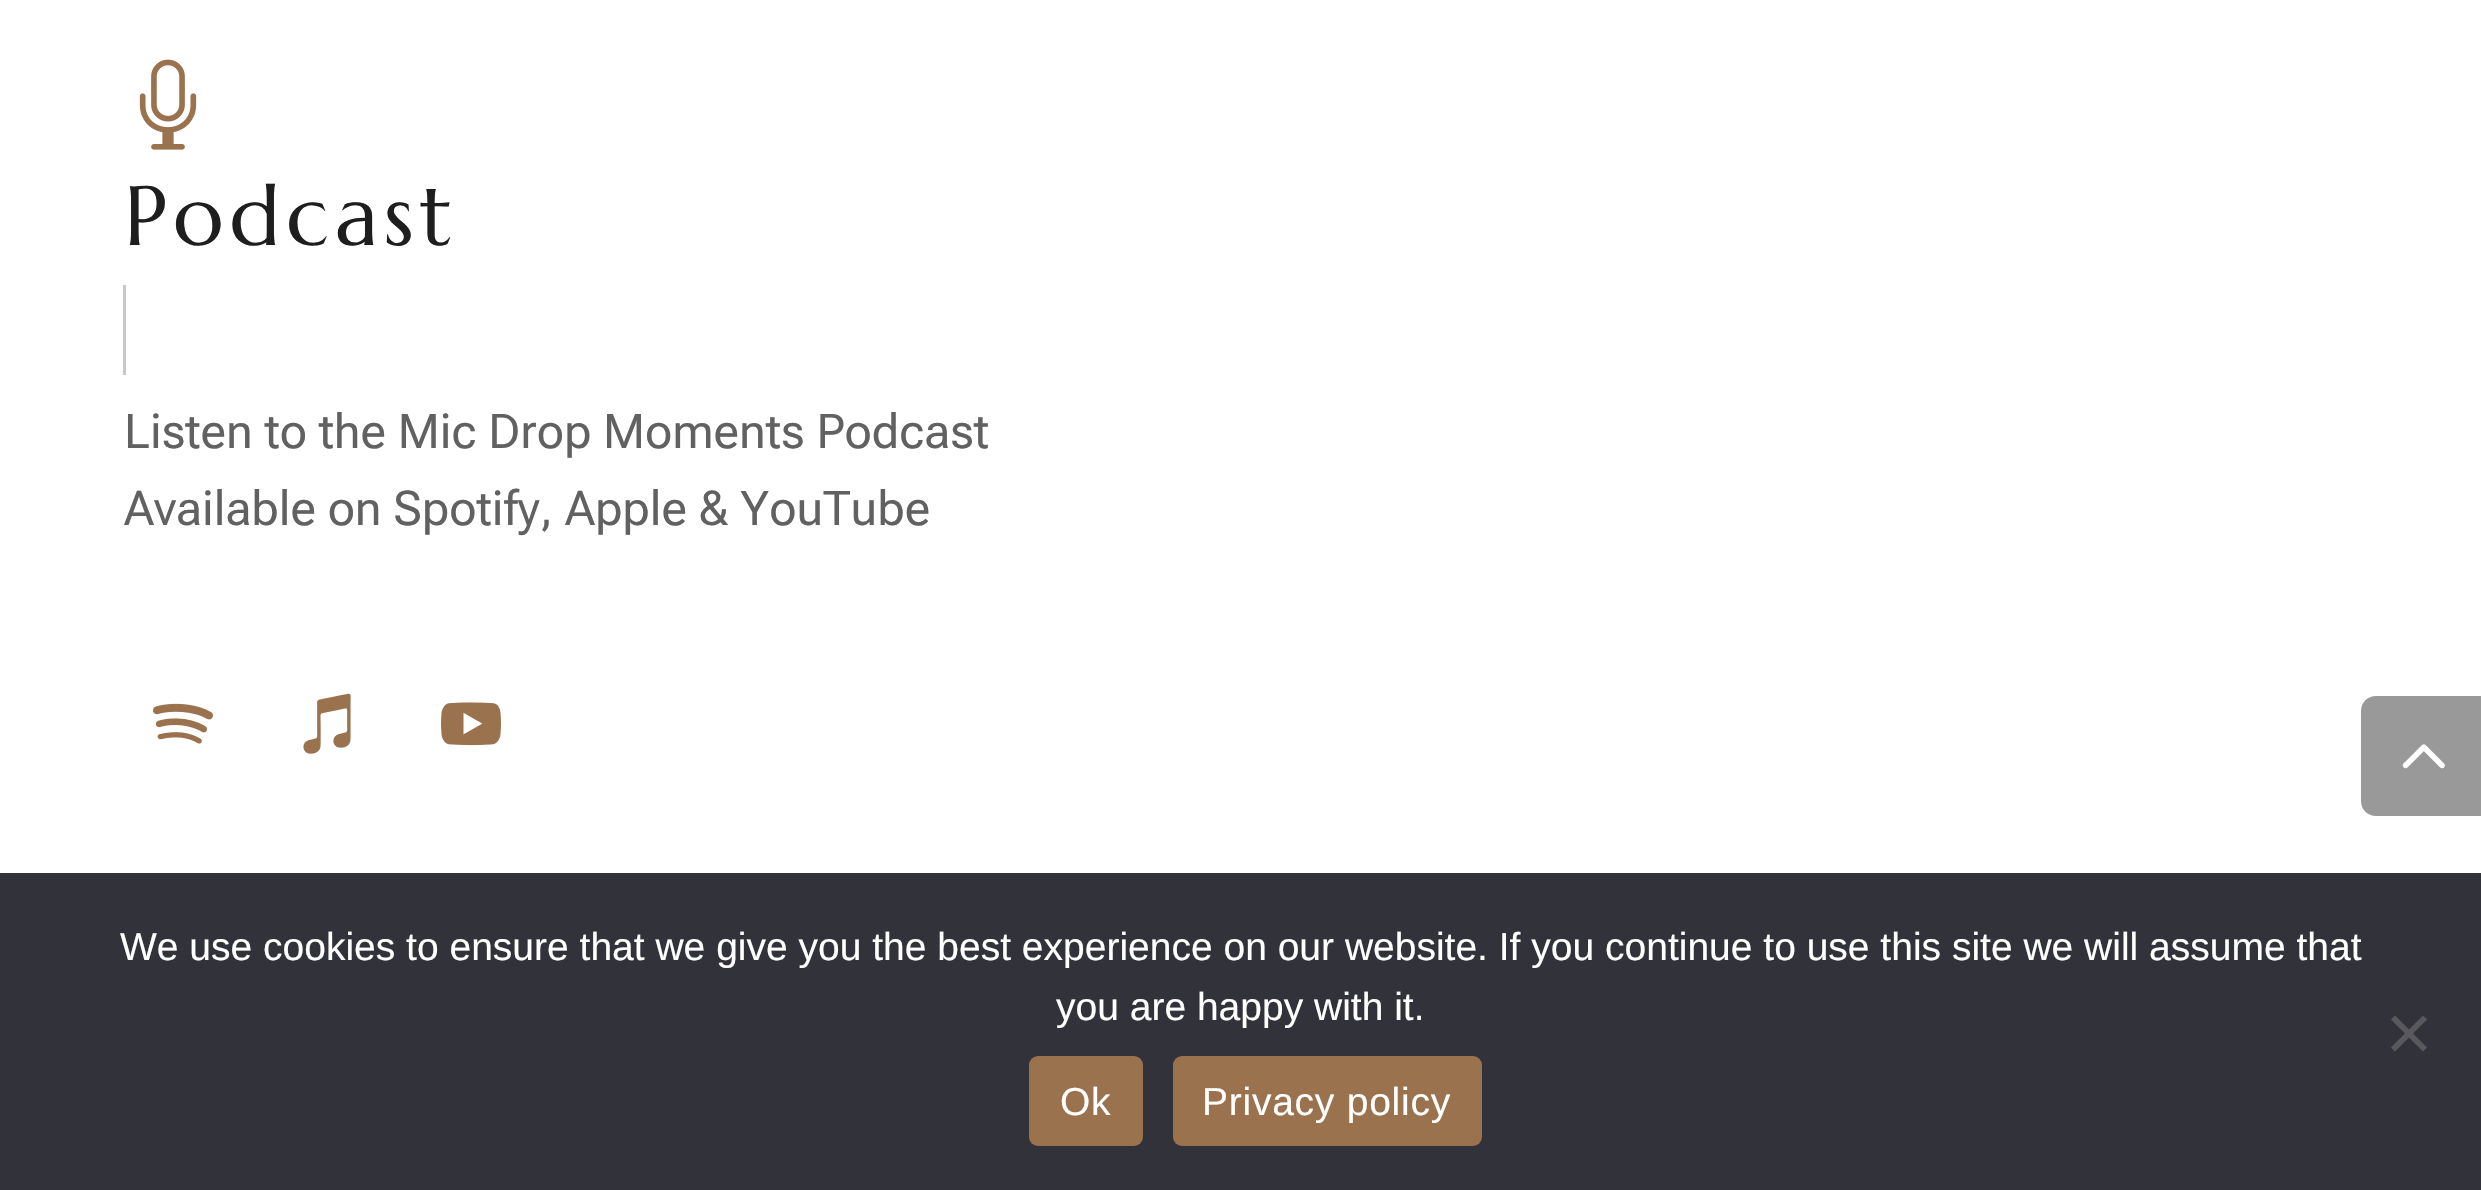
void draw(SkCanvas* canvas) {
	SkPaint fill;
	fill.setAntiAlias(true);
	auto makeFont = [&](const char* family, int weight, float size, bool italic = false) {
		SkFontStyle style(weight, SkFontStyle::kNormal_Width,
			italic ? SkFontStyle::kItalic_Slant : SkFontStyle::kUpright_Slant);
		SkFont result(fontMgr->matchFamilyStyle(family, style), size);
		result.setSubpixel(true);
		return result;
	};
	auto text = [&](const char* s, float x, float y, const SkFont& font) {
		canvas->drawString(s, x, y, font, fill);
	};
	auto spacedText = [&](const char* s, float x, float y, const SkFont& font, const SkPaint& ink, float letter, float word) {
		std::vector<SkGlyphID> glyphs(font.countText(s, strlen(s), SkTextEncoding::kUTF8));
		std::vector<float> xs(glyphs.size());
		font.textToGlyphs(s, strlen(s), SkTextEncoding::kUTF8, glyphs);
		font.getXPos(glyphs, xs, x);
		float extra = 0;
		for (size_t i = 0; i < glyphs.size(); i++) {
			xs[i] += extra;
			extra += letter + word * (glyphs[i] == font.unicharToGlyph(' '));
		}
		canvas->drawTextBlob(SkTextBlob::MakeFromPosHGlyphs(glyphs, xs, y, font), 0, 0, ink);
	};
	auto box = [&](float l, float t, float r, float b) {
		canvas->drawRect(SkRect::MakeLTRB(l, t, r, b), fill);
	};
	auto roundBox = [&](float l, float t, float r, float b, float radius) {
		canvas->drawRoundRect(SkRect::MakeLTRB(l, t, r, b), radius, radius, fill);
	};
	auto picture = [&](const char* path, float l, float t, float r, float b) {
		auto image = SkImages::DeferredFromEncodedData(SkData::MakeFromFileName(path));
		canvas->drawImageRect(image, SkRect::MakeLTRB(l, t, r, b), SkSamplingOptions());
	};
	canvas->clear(0xFFFFFFFF);
	picture("image0.png", 139, 59, 197, 150);
	fill.setColor(0xFFC8C8C8);
	box(123, 285, 126, 375);
	picture("image1.png", 153, 703, 213, 744);
	picture("image2.png", 303, 693, 351, 754);
	picture("image3.png", 441, 702, 501, 746);
	fill.setColor(0xFF999999);
	canvas->drawPath(SkPathBuilder().moveTo(2376, 696).lineTo(2481, 696).lineTo(2481, 816).lineTo(2376, 816).cubicTo(2367.5f, 816, 2361, 809.5f, 2361, 801).lineTo(2361, 711).cubicTo(2361, 702.5f, 2367.5f, 696, 2376, 696).close().detach(), fill);
	picture("image4.png", 2402, 744, 2445, 769);
	fill.setColor(0xFF32323A);
	box(0, 873, 2481, 1190);
	fill.setColor(0xFF59595D);
	canvas->drawPath(SkPathBuilder().moveTo(2423, 1015.5f).lineTo(2427, 1019.5f).lineTo(2395, 1051.5f).lineTo(2391, 1047.5f).close().detach(), fill);
	canvas->drawPath(SkPathBuilder().moveTo(2391, 1019.5f).lineTo(2395, 1015.5f).lineTo(2427, 1047.5f).lineTo(2423, 1051.5f).close().detach(), fill);
	fill.setColor(0xFF9A724E);
	roundBox(1029, 1056, 1143, 1146, 9);
	roundBox(1173, 1056, 1482, 1146, 9);
	auto font1 = makeFont("Marcellus", 400, 84);
	fill.setColor(0xFF1E1E1E);
	spacedText("Podcast", 124, 245, font1, fill, 6, 0);
	auto font2 = makeFont("Roboto Flex", 400, 48);
	fill.setColor(0xFF616161);
	text("Listen to the Mic Drop Moments Podcast", 124, 448, font2);
	text("Available on Spotify, Apple & YouTube", 124, 525, font2);
	auto font3 = makeFont("Liberation Sans", 400, 39);
	fill.setColor(0xFFFFFFFF);
	text("We use cookies to ensure that we give you the best experience on our website. If you continue to use this site we will assume that", 120, 960, font3);
	text("you are happy with it.", 1056, 1020, font3);
	spacedText("Ok", 1060, 1115, font3, fill, 0.75f, 0);
	spacedText("Privacy policy", 1202, 1115, font3, fill, 0.75f, 0);
}
